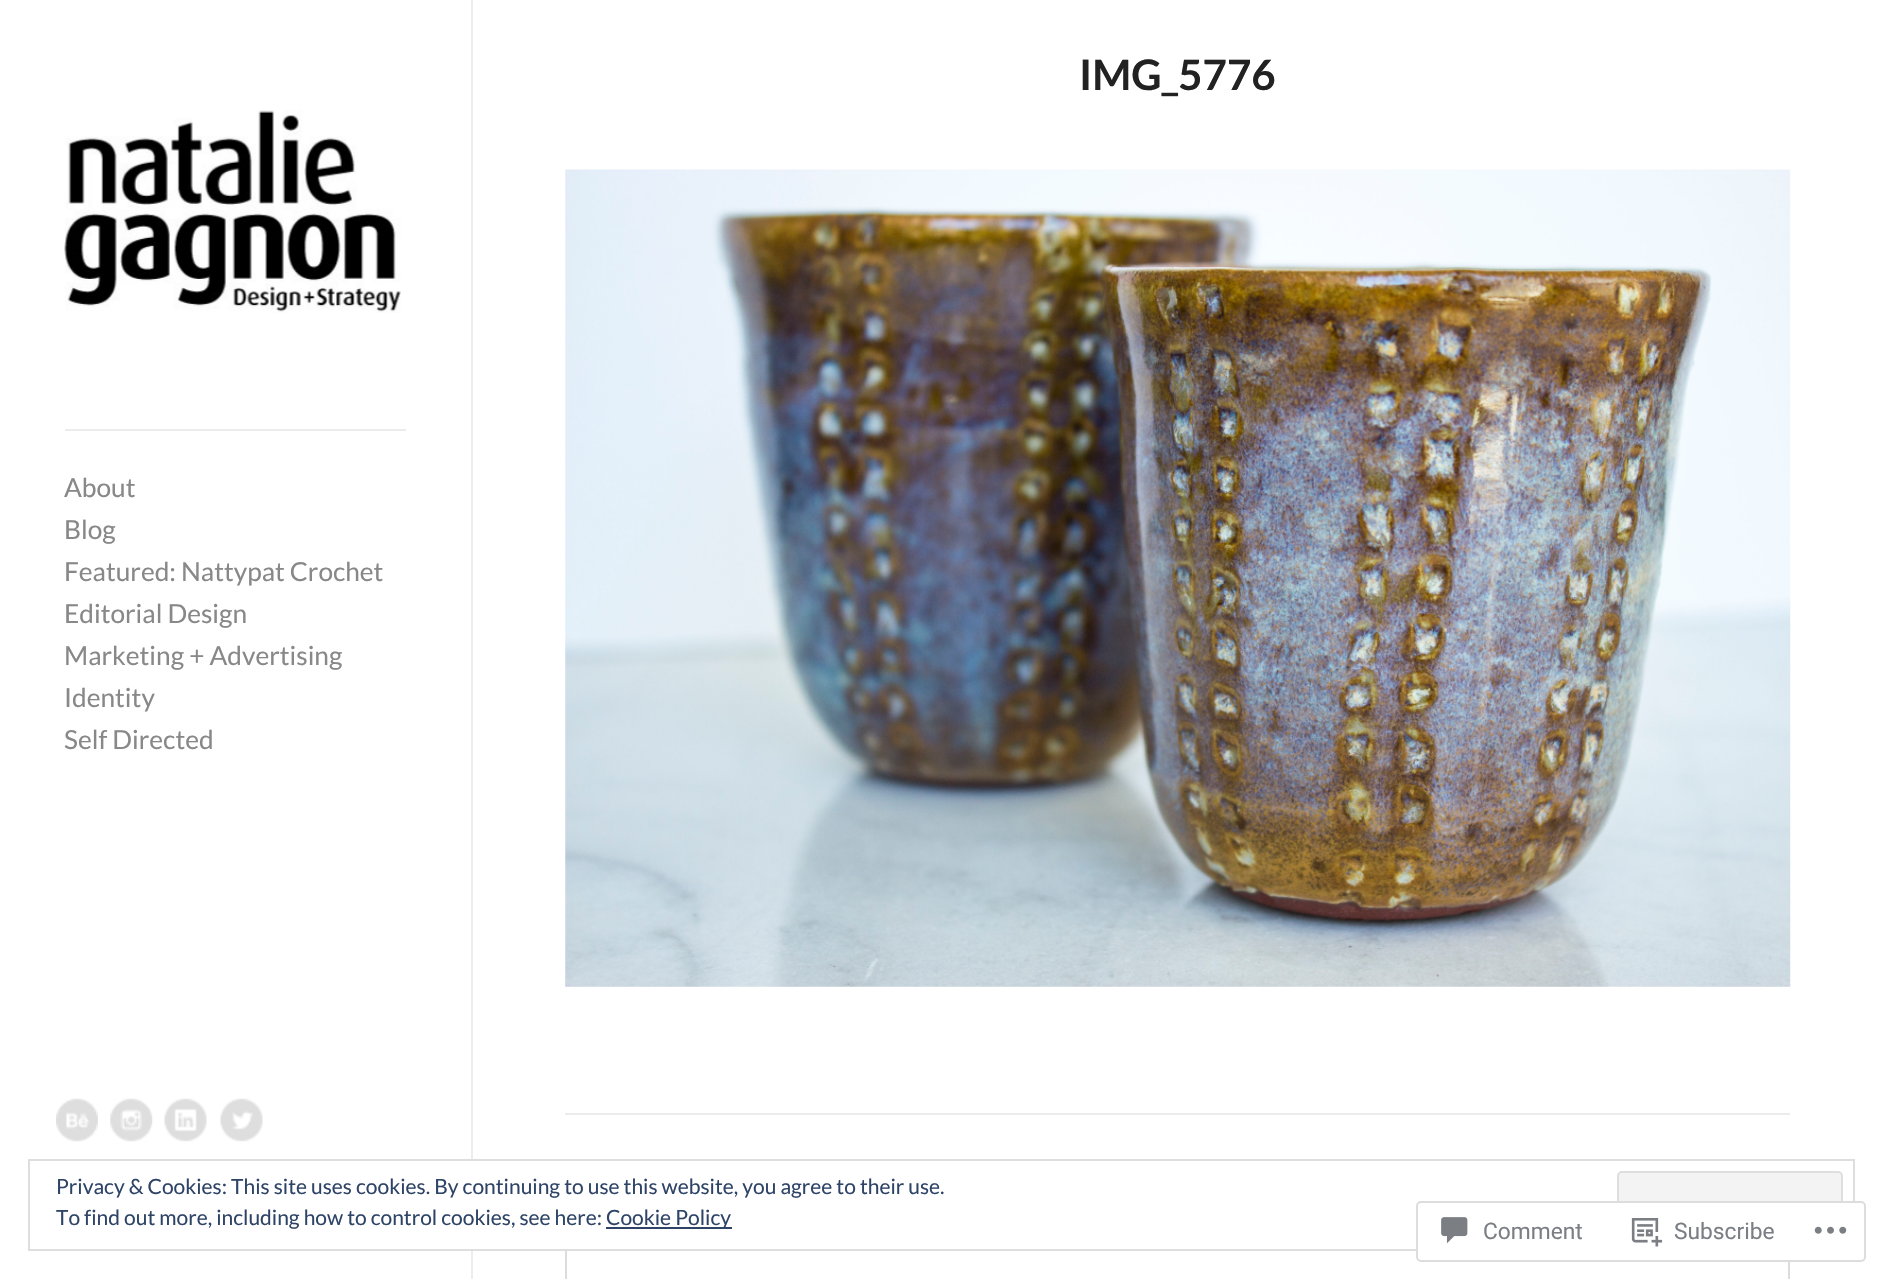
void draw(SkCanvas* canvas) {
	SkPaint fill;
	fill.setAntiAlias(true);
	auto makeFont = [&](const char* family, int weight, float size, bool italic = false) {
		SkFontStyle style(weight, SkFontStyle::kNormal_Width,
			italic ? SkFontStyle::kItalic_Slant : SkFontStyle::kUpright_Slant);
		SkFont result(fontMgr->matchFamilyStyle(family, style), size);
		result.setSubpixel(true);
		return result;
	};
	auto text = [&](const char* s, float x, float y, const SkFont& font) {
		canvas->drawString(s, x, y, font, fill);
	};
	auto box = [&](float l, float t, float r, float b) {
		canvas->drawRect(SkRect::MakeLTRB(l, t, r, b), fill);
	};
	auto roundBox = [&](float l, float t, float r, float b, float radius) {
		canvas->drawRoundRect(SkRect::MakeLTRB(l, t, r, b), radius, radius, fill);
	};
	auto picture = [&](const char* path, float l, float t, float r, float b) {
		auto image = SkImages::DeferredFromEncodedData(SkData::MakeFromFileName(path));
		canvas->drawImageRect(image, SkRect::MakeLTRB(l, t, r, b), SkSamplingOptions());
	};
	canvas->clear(0xFFFFFFFF);
	picture("image0.png", 565, 169, 1791, 987);
	fill.setColor(0xFFECECEC);
	box(565, 1113, 1790, 1115);
	fill.setStyle(SkPaint::kStroke_Style);
	fill.setStrokeWidth(2);
	fill.setColor(0xFFDCDCDE);
	canvas->drawRect(SkRect::MakeLTRB(566, 1242, 1789, 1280), fill);
	fill.setStyle(SkPaint::kFill_Style);
	fill.setColor(0xFFECEDEC);
	box(471, 0, 473, 1279);
	fill.setColor(0xFFECECEC);
	box(65, 429, 406, 431);
	picture("image1.png", 64, 110, 401, 313);
	picture("image2.png", 56, 1098, 98, 1142);
	picture("image3.png", 110, 1098, 153, 1142);
	picture("image4.png", 164, 1098, 207, 1142);
	picture("image5.png", 220, 1098, 263, 1142);
	fill.setColor(0xFFFFFFFF);
	box(471, 1161, 1790, 1249);
	fill.setStyle(SkPaint::kStroke_Style);
	fill.setColor(0xFFDEDEDE);
	canvas->drawRect(SkRect::MakeLTRB(29, 1160, 1854, 1250), fill);
	fill.setStyle(SkPaint::kFill_Style);
	fill.setColor(0xFFF3F3F3);
	canvas->drawRoundRect(SkRect::MakeLTRB(1618, 1172, 1842, 1238), 4, 4, fill);
	fill.setStyle(SkPaint::kStroke_Style);
	fill.setColor(0xFFDEDEDE);
	canvas->drawRoundRect(SkRect::MakeLTRB(1618, 1172, 1842, 1238), 4, 4, fill);
	fill.setStyle(SkPaint::kFill_Style);
	fill.setColor(0xFF2E4467);
	box(606, 1227, 732, 1229);
	fill.setColor(0xFAFFFFFF);
	roundBox(1416, 1201, 1866, 1262, 5);
	fill.setStyle(SkPaint::kStroke_Style);
	fill.setColor(0xFADCDCDE);
	canvas->drawRoundRect(SkRect::MakeLTRB(1417, 1202, 1865, 1261), 4, 4, fill);
	picture("image6.png", 1441, 1217, 1468, 1244);
	picture("image7.png", 1631, 1218, 1663, 1247);
	picture("image8.png", 1814, 1226, 1847, 1234);
	auto font1 = makeFont("Lato", 700, 42);
	fill.setStyle(SkPaint::kFill_Style);
	fill.setColor(0xFF222222);
	text("IMG_5776", 1079, 90, font1);
	auto font2 = makeFont("Lato", 400, 26.25f);
	fill.setColor(0xFF888888);
	text("About", 64, 497, font2);
	text("Blog", 64, 539, font2);
	text("Featured: Nattypat Crochet", 64, 581, font2);
	text("Editorial Design", 64, 623, font2);
	text("Marketing + Advertising", 64, 665, font2);
	text("Identity", 64, 707, font2);
	text("Self Directed", 64, 749, font2);
	auto font3 = makeFont("Lato", 400, 21);
	fill.setColor(0xFF2E4467);
	text("Privacy & Cookies: This site uses cookies. By continuing to use this website, you agree to their use.", 56, 1194, font3);
	text("To find out more, including how to control cookies, see here:", 56, 1225, font3);
	text("Cookie Policy", 606, 1225, font3);
	auto font4 = makeFont("Roboto", 400, 22.75f);
	fill.setColor(0xFF7B7F85);
	text("Comment", 1483, 1239, font4);
	text("Subscribe", 1674, 1239, font4);
}
